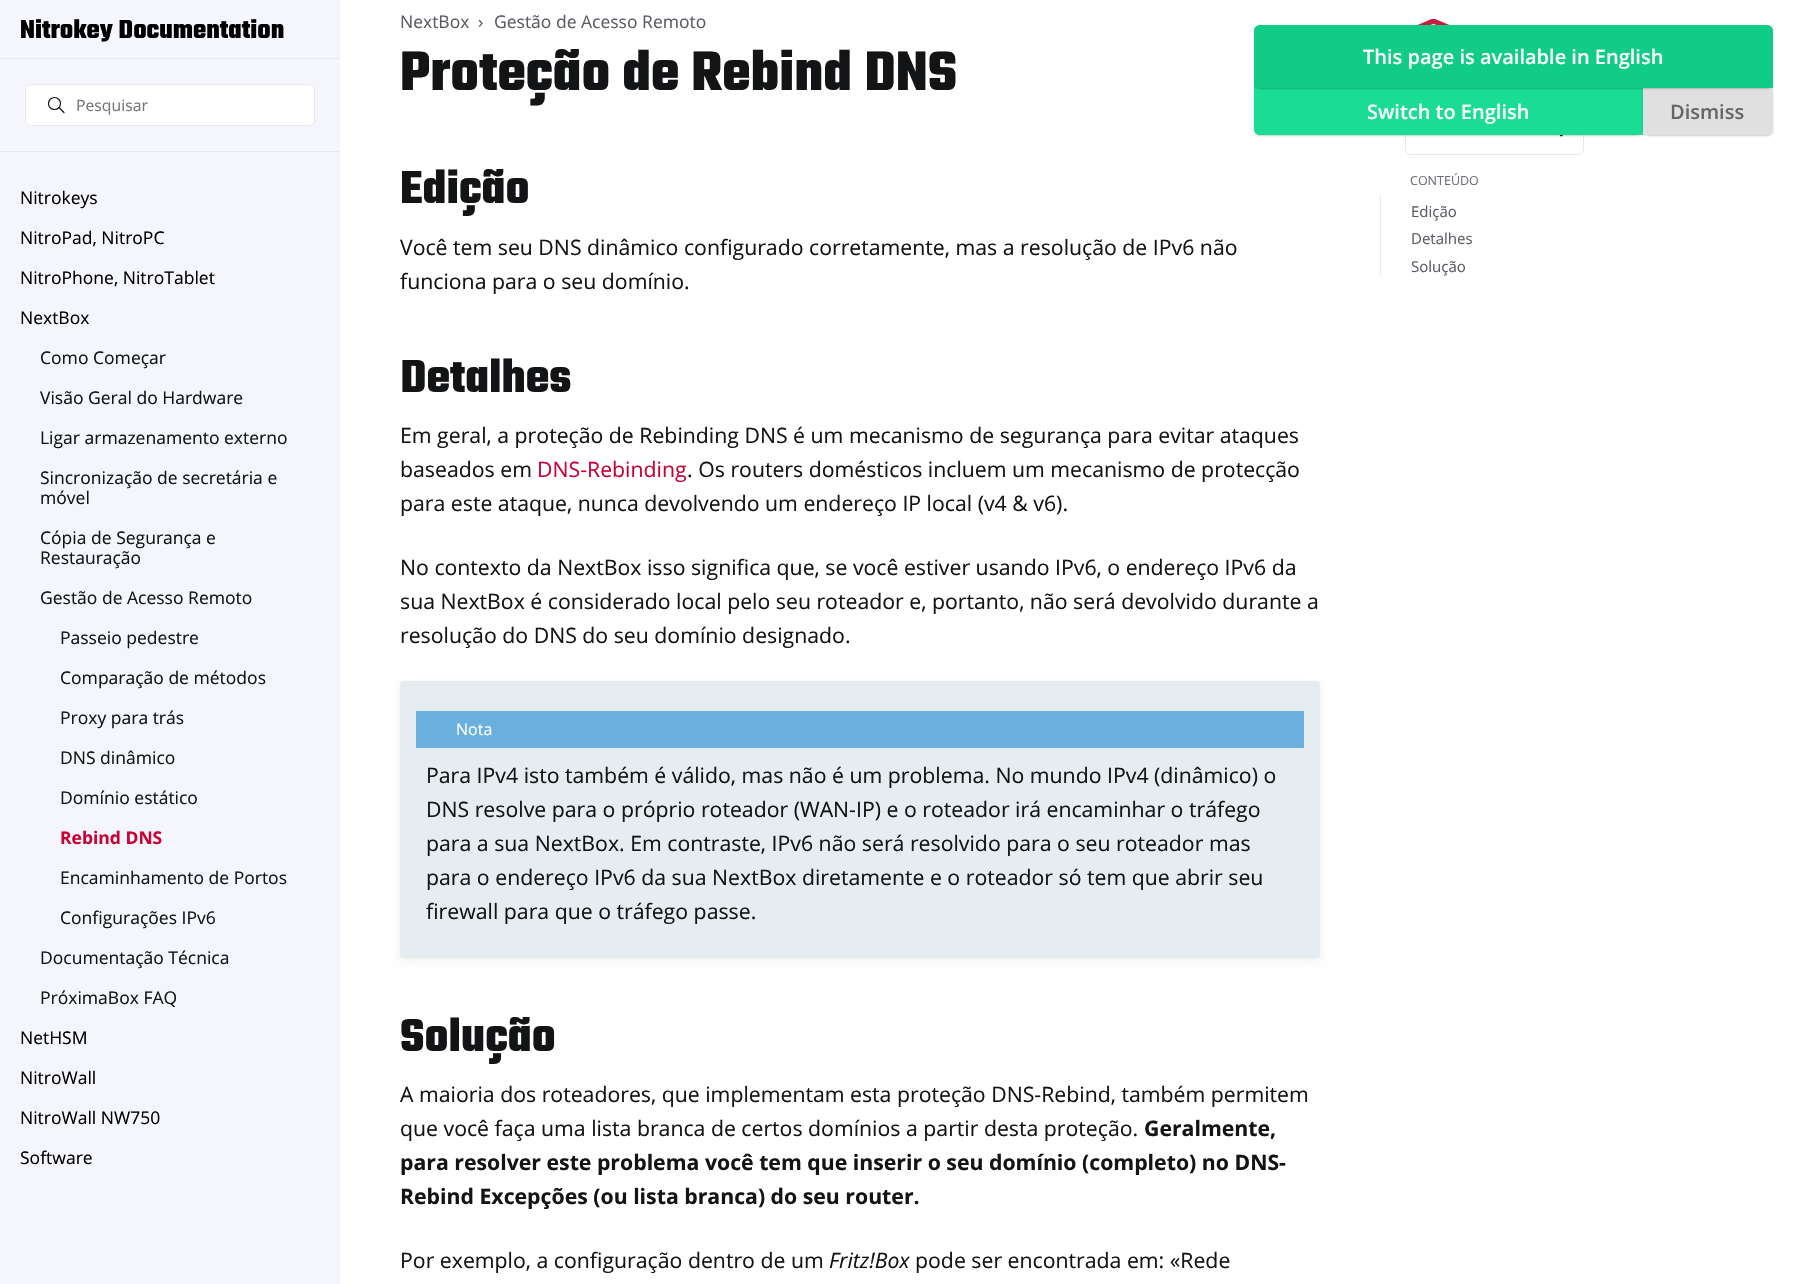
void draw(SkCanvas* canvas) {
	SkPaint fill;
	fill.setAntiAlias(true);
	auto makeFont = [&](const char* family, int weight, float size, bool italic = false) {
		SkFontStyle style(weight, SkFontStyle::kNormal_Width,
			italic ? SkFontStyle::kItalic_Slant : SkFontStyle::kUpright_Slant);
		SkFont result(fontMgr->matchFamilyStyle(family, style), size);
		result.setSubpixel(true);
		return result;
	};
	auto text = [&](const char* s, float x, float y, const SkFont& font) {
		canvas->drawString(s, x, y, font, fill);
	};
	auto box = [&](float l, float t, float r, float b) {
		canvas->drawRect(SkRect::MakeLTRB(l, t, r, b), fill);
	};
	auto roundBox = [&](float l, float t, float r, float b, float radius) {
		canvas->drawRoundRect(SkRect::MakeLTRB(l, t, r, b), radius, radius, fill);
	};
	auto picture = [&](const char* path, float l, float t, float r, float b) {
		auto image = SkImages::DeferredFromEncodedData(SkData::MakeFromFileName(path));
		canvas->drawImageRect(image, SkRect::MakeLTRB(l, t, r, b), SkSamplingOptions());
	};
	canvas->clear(0xFFFFFFFF);
	fill.setColor(0xFFF5F6FB);
	box(0, 0, 340, 1284);
	fill.setColor(0xFFE8E7F1);
	box(0, 58, 340, 59);
	fill.setColor(0xFFFFFFFF);
	canvas->drawRoundRect(SkRect::MakeLTRB(25.5f, 84.5f, 314.5f, 125.5f), 5.5f, 5.5f, fill);
	fill.setStyle(SkPaint::kStroke_Style);
	fill.setStrokeWidth(1);
	fill.setColor(0xFFE8E7F1);
	canvas->drawRoundRect(SkRect::MakeLTRB(25.5f, 84.5f, 314.5f, 125.5f), 5.5f, 5.5f, fill);
	fill.setStrokeWidth(1.2f);
	fill.setColor(0xFF131416);
	canvas->drawCircle(54.5f, 103.5f, 6, fill);
	fill.setStrokeCap(SkPaint::kRound_Cap);
	fill.setStrokeJoin(SkPaint::kRound_Join);
	canvas->drawPath(SkPathBuilder().moveTo(64, 112.5f).lineTo(59, 107.5f).detach(), fill);
	fill.setStyle(SkPaint::kFill_Style);
	fill.setColor(0xFFE8E7F1);
	box(0, 151, 340, 152);
	fill.setColor(0x1A000000);
	fill.setMaskFilter(SkMaskFilter::MakeBlur(kNormal_SkBlurStyle, 0.5f));
	canvas->drawRoundRect(SkRect::MakeLTRB(400, 681, 1320, 958), 4, 4, fill);
	fill.setMaskFilter(nullptr);
	fill.setColor(0x0D000000);
	fill.setMaskFilter(SkMaskFilter::MakeBlur(kNormal_SkBlurStyle, 5));
	canvas->drawRoundRect(SkRect::MakeLTRB(400, 685, 1320, 961), 4, 4, fill);
	fill.setMaskFilter(nullptr);
	fill.setColor(0xFFE6EDF1);
	roundBox(400, 681, 1320, 958, 4);
	fill.setColor(0xFF6AB0DE);
	box(416, 711, 1304, 748);
	picture("image1.png", 1559, 135, 1563, 137);
	fill.setStyle(SkPaint::kStroke_Style);
	fill.setStrokeWidth(1);
	fill.setStrokeCap(SkPaint::kButt_Cap);
	fill.setStrokeJoin(SkPaint::kMiter_Join);
	fill.setColor(0xFFE8E7F1);
	canvas->drawRoundRect(SkRect::MakeLTRB(1405.5f, 114.5f, 1583.5f, 154.5f), 5.5f, 5.5f, fill);
	fill.setStyle(SkPaint::kFill_Style);
	fill.setColor(0x33000000);
	fill.setMaskFilter(SkMaskFilter::MakeBlur(kNormal_SkBlurStyle, 1));
	canvas->drawRoundRect(SkRect::MakeLTRB(1254, 89, 1643, 136), 6, 6, fill);
	fill.setMaskFilter(nullptr);
	fill.setColor(0xFF1ADC94);
	canvas->drawPath(SkPathBuilder().moveTo(1254, 88).lineTo(1643, 88).lineTo(1643, 135).lineTo(1260, 135).cubicTo(1256.5f, 135, 1254, 132.5f, 1254, 129).close().detach(), fill);
	fill.setColor(0x33000000);
	fill.setMaskFilter(SkMaskFilter::MakeBlur(kNormal_SkBlurStyle, 1));
	canvas->drawRoundRect(SkRect::MakeLTRB(1643, 89, 1773, 136), 6, 6, fill);
	fill.setMaskFilter(nullptr);
	fill.setColor(0xFFE0E0E0);
	canvas->drawPath(SkPathBuilder().moveTo(1643, 88).lineTo(1773, 88).lineTo(1773, 129).cubicTo(1773, 132.5f, 1770.5f, 135, 1767, 135).lineTo(1643, 135).close().detach(), fill);
	picture("image0.png", 1417, 19, 1449, 25);
	fill.setColor(0x33000000);
	fill.setMaskFilter(SkMaskFilter::MakeBlur(kNormal_SkBlurStyle, 1));
	canvas->drawRoundRect(SkRect::MakeLTRB(1254, 26, 1773, 89), 6, 6, fill);
	fill.setMaskFilter(nullptr);
	fill.setColor(0xFF10CC86);
	canvas->drawPath(SkPathBuilder().moveTo(1260, 25).lineTo(1767, 25).cubicTo(1770.5f, 25, 1773, 27.5f, 1773, 31).lineTo(1773, 88).lineTo(1254, 88).lineTo(1254, 31).cubicTo(1254, 27.5f, 1256.5f, 25, 1260, 25).close().detach(), fill);
	fill.setColor(0xFFEEEBEE);
	box(1380, 194, 1381, 276);
	auto font1 = makeFont("Teko", 300, 28);
	fill.setColor(0xFF000000);
	text("Nitrokey Documentation", 20, 38, font1);
	auto font2 = makeFont("Open Sans", 400, 15.75f);
	fill.setColor(0xFF757575);
	text("Pesquisar", 76, 111, font2);
	auto font3 = makeFont("Open Sans", 400, 17.5f);
	fill.setColor(0xFF000000);
	text("Nitrokeys", 20, 204, font3);
	text("NitroPad, NitroPC", 20, 244, font3);
	text("NitroPhone, NitroTablet", 20, 284, font3);
	text("NextBox", 20, 324, font3);
	fill.setColor(0xFF131416);
	text("Como Começar", 40, 364, font3);
	text("Visão Geral do Hardware", 40, 404, font3);
	text("Ligar armazenamento externo", 40, 444, font3);
	text("Sincronização de secretária e", 40, 484, font3);
	text("móvel", 40, 504, font3);
	text("Cópia de Segurança e", 40, 544, font3);
	text("Restauração", 40, 564, font3);
	text("Gestão de Acesso Remoto", 40, 604, font3);
	text("Passeio pedestre", 60, 644, font3);
	text("Comparação de métodos", 60, 684, font3);
	text("Proxy para trás", 60, 724, font3);
	text("DNS dinâmico", 60, 764, font3);
	text("Domínio estático", 60, 804, font3);
	auto font4 = makeFont("Open Sans", 700, 17.5f);
	fill.setColor(0xFFC70336);
	text("Rebind DNS", 60, 844, font4);
	fill.setColor(0xFF131416);
	text("Encaminhamento de Portos", 60, 884, font3);
	text("Configurações IPv6", 60, 924, font3);
	text("Documentação Técnica", 40, 964, font3);
	text("PróximaBox FAQ", 40, 1004, font3);
	fill.setColor(0xFF000000);
	text("NetHSM", 20, 1044, font3);
	text("NitroWall", 20, 1084, font3);
	text("NitroWall NW750", 20, 1124, font3);
	text("Software", 20, 1164, font3);
	fill.setColor(0xFF5A5C63);
	text("NextBox", 400, 28, font3);
	text("›", 478, 28, font3);
	text("Gestão de Acesso Remoto", 494, 28, font3);
	auto font5 = makeFont("Teko", 300, 60);
	fill.setColor(0xFF131416);
	text("Proteção de Rebind DNS", 400, 90, font5);
	auto font6 = makeFont("Teko", 300, 50);
	text("Edição", 400, 203, font6);
	auto font7 = makeFont("Open Sans", 400, 21.25f);
	text("Você tem seu DNS dinâmico configurado corretamente, mas a resolução de IPv6 não", 400, 255, font7);
	text("funciona para o seu domínio.", 400, 289, font7);
	text("Detalhes", 400, 392, font6);
	text("Em geral, a proteção de Rebinding DNS é um mecanismo de segurança para evitar ataques", 400, 443, font7);
	text("baseados em", 400, 477, font7);
	fill.setColor(0xFFC70336);
	text("DNS-Rebinding", 537, 477, font7);
	fill.setColor(0xFF131416);
	text(". Os routers domésticos incluem um mecanismo de protecção", 687, 477, font7);
	text("para este ataque, nunca devolvendo um endereço IP local (v4 & v6).", 400, 511, font7);
	text("No contexto da NextBox isso significa que, se você estiver usando IPv6, o endereço IPv6 da", 400, 575, font7);
	text("sua NextBox é considerado local pelo seu roteador e, portanto, não será devolvido durante a", 400, 609, font7);
	text("resolução do DNS do seu domínio designado.", 400, 643, font7);
	auto font8 = makeFont("Open Sans", 400, 16);
	fill.setColor(0xFFFFFFFF);
	text("Nota", 456, 735, font8);
	fill.setColor(0xFF131416);
	text("Para IPv4 isto também é válido, mas não é um problema. No mundo IPv4 (dinâmico) o", 426, 783, font7);
	text("DNS resolve para o próprio roteador (WAN-IP) e o roteador irá encaminhar o tráfego", 426, 817, font7);
	text("para a sua NextBox. Em contraste, IPv6 não será resolvido para o seu roteador mas", 426, 851, font7);
	text("para o endereço IPv6 da sua NextBox diretamente e o roteador só tem que abrir seu", 426, 885, font7);
	text("firewall para que o tráfego passe.", 426, 919, font7);
	text("Solução", 400, 1051, font6);
	text("A maioria dos roteadores, que implementam esta proteção DNS-Rebind, também permitem", 400, 1102, font7);
	text("que você faça uma lista branca de certos domínios a partir desta proteção.", 400, 1136, font7);
	auto font9 = makeFont("Open Sans", 700, 21.25f);
	text("Geralmente,", 1144, 1136, font9);
	text("para resolver este problema você tem que inserir o seu domínio (completo) no DNS-", 400, 1170, font9);
	text("Rebind Excepções (ou lista branca) do seu router.", 400, 1204, font9);
	text("Por exemplo, a configuração dentro de um", 400, 1268, font7);
	auto font10 = makeFont("Open Sans", 400, 21.25f, true);
	text("Fritz!Box", 829, 1268, font10);
	text("pode ser encontrada em: «Rede", 915, 1268, font7);
	auto font11 = makeFont("Open Sans", 600, 20);
	fill.setColor(0xFFFFFFFF);
	text("This page is available in English", 1363, 64, font11);
	text("Switch to English", 1367, 119, font11);
	fill.setColor(0xFF666666);
	text("Dismiss", 1670, 119, font11);
	auto font12 = makeFont("Open Sans", 400, 12.5f);
	fill.setColor(0xFF6B6F76);
	text("CONTEÚDO", 1410, 185, font12);
	auto font13 = makeFont("Open Sans", 400, 15);
	fill.setColor(0xFF5A5C63);
	text("Edição", 1411, 217, font13);
	text("Detalhes", 1411, 244, font13);
	text("Solução", 1411, 272, font13);
}
